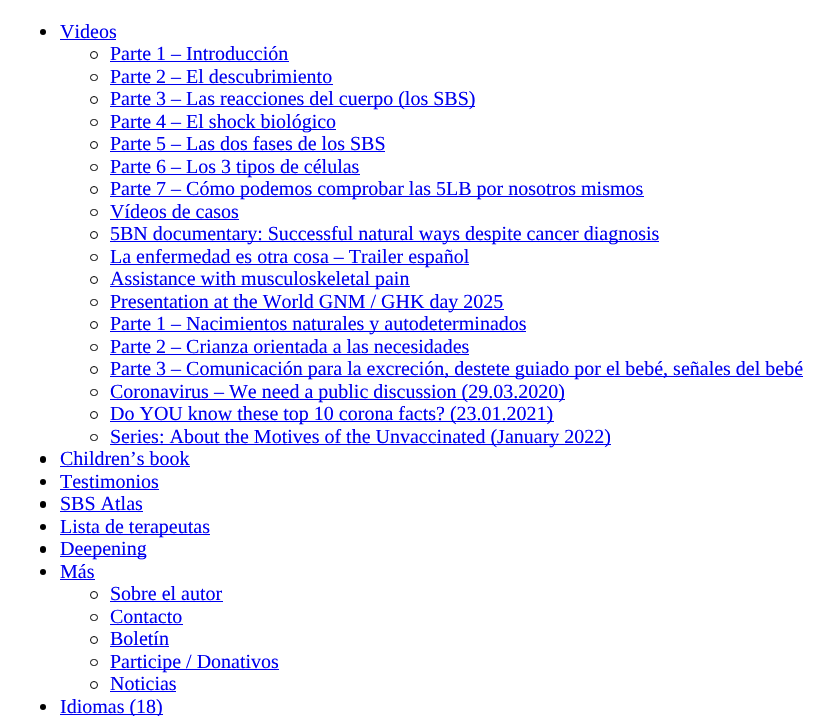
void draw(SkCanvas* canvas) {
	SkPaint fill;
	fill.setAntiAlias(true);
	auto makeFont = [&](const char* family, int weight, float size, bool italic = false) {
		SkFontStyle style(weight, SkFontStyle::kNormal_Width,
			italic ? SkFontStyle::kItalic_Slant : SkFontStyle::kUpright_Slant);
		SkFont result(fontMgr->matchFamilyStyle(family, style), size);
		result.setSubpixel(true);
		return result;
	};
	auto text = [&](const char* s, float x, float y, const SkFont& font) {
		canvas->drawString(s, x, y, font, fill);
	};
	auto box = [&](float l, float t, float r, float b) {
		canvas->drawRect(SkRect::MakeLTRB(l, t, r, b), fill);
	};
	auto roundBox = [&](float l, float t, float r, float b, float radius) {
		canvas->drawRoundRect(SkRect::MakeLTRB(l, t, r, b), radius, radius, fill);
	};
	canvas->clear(0xFFFFFFFF);
	fill.setColor(0xFF000000);
	canvas->drawCircle(43, 32, 3, fill);
	fill.setColor(0xFF0000EE);
	box(60, 39, 116, 40);
	fill.setStyle(SkPaint::kStroke_Style);
	fill.setStrokeWidth(1);
	fill.setColor(0xFF000000);
	canvas->drawCircle(94, 55, 3.5f, fill);
	fill.setStyle(SkPaint::kFill_Style);
	fill.setColor(0xFF0000EE);
	box(110, 61, 289, 62);
	fill.setStyle(SkPaint::kStroke_Style);
	fill.setColor(0xFF000000);
	canvas->drawRoundRect(SkRect::MakeLTRB(90.5f, 74.5f, 97.5f, 80.5f), 3, 3, fill);
	fill.setStyle(SkPaint::kFill_Style);
	fill.setColor(0xFF0000EE);
	box(110, 84, 333, 85);
	fill.setStyle(SkPaint::kStroke_Style);
	fill.setColor(0xFF000000);
	canvas->drawCircle(94, 100, 3.5f, fill);
	fill.setStyle(SkPaint::kFill_Style);
	fill.setColor(0xFF0000EE);
	box(110, 106, 475, 107);
	fill.setStyle(SkPaint::kStroke_Style);
	fill.setColor(0xFF000000);
	canvas->drawRoundRect(SkRect::MakeLTRB(90.5f, 119.5f, 97.5f, 125.5f), 3, 3, fill);
	fill.setStyle(SkPaint::kFill_Style);
	fill.setColor(0xFF0000EE);
	box(110, 129, 336, 130);
	fill.setStyle(SkPaint::kStroke_Style);
	fill.setColor(0xFF000000);
	canvas->drawCircle(94, 145, 3.5f, fill);
	fill.setStyle(SkPaint::kFill_Style);
	fill.setColor(0xFF0000EE);
	box(110, 151, 385, 152);
	fill.setStyle(SkPaint::kStroke_Style);
	fill.setColor(0xFF000000);
	canvas->drawRoundRect(SkRect::MakeLTRB(90.5f, 164.5f, 97.5f, 170.5f), 3, 3, fill);
	fill.setStyle(SkPaint::kFill_Style);
	fill.setColor(0xFF0000EE);
	box(110, 174, 360, 175);
	fill.setStyle(SkPaint::kStroke_Style);
	fill.setColor(0xFF000000);
	canvas->drawCircle(94, 190, 3.5f, fill);
	fill.setStyle(SkPaint::kFill_Style);
	fill.setColor(0xFF0000EE);
	box(110, 196, 644, 197);
	fill.setStyle(SkPaint::kStroke_Style);
	fill.setColor(0xFF000000);
	canvas->drawRoundRect(SkRect::MakeLTRB(90.5f, 209.5f, 97.5f, 215.5f), 3, 3, fill);
	fill.setStyle(SkPaint::kFill_Style);
	fill.setColor(0xFF0000EE);
	box(110, 219, 239, 220);
	fill.setStyle(SkPaint::kStroke_Style);
	fill.setColor(0xFF000000);
	canvas->drawCircle(94, 235, 3.5f, fill);
	fill.setStyle(SkPaint::kFill_Style);
	fill.setColor(0xFF0000EE);
	box(110, 241, 659, 242);
	fill.setStyle(SkPaint::kStroke_Style);
	fill.setColor(0xFF000000);
	canvas->drawRoundRect(SkRect::MakeLTRB(90.5f, 254.5f, 97.5f, 260.5f), 3, 3, fill);
	fill.setStyle(SkPaint::kFill_Style);
	fill.setColor(0xFF0000EE);
	box(110, 264, 469, 265);
	fill.setStyle(SkPaint::kStroke_Style);
	fill.setColor(0xFF000000);
	canvas->drawCircle(94, 280, 3.5f, fill);
	fill.setStyle(SkPaint::kFill_Style);
	fill.setColor(0xFF0000EE);
	box(110, 286, 410, 287);
	fill.setStyle(SkPaint::kStroke_Style);
	fill.setColor(0xFF000000);
	canvas->drawRoundRect(SkRect::MakeLTRB(90.5f, 299.5f, 97.5f, 305.5f), 3, 3, fill);
	fill.setStyle(SkPaint::kFill_Style);
	fill.setColor(0xFF0000EE);
	box(110, 309, 504, 310);
	fill.setStyle(SkPaint::kStroke_Style);
	fill.setColor(0xFF000000);
	canvas->drawCircle(94, 325, 3.5f, fill);
	fill.setStyle(SkPaint::kFill_Style);
	fill.setColor(0xFF0000EE);
	box(110, 331, 526, 332);
	fill.setStyle(SkPaint::kStroke_Style);
	fill.setColor(0xFF000000);
	canvas->drawRoundRect(SkRect::MakeLTRB(90.5f, 344.5f, 97.5f, 350.5f), 3, 3, fill);
	fill.setStyle(SkPaint::kFill_Style);
	fill.setColor(0xFF0000EE);
	box(110, 354, 469, 355);
	fill.setStyle(SkPaint::kStroke_Style);
	fill.setColor(0xFF000000);
	canvas->drawCircle(94, 370, 3.5f, fill);
	fill.setStyle(SkPaint::kFill_Style);
	fill.setColor(0xFF0000EE);
	box(110, 376, 803, 377);
	fill.setStyle(SkPaint::kStroke_Style);
	fill.setColor(0xFF000000);
	canvas->drawRoundRect(SkRect::MakeLTRB(90.5f, 389.5f, 97.5f, 395.5f), 3, 3, fill);
	fill.setStyle(SkPaint::kFill_Style);
	fill.setColor(0xFF0000EE);
	box(110, 399, 565, 400);
	fill.setStyle(SkPaint::kStroke_Style);
	fill.setColor(0xFF000000);
	canvas->drawCircle(94, 415, 3.5f, fill);
	fill.setStyle(SkPaint::kFill_Style);
	fill.setColor(0xFF0000EE);
	box(110, 421, 554, 422);
	fill.setStyle(SkPaint::kStroke_Style);
	fill.setColor(0xFF000000);
	canvas->drawRoundRect(SkRect::MakeLTRB(90.5f, 434.5f, 97.5f, 440.5f), 3, 3, fill);
	fill.setStyle(SkPaint::kFill_Style);
	fill.setColor(0xFF0000EE);
	box(110, 444, 611, 445);
	fill.setColor(0xFF000000);
	roundBox(40, 456, 46, 463, 3);
	fill.setColor(0xFF0000EE);
	box(60, 466, 190, 467);
	fill.setColor(0xFF000000);
	canvas->drawCircle(43, 482, 3, fill);
	fill.setColor(0xFF0000EE);
	box(60, 489, 159, 490);
	fill.setColor(0xFF000000);
	roundBox(40, 501, 46, 508, 3);
	fill.setColor(0xFF0000EE);
	box(60, 511, 143, 512);
	fill.setColor(0xFF000000);
	canvas->drawCircle(43, 527, 3, fill);
	fill.setColor(0xFF0000EE);
	box(60, 534, 210, 535);
	fill.setColor(0xFF000000);
	roundBox(40, 546, 46, 553, 3);
	fill.setColor(0xFF0000EE);
	box(60, 556, 146, 557);
	fill.setColor(0xFF000000);
	canvas->drawCircle(43, 572, 3, fill);
	fill.setColor(0xFF0000EE);
	box(60, 579, 95, 580);
	fill.setStyle(SkPaint::kStroke_Style);
	fill.setColor(0xFF000000);
	canvas->drawCircle(94, 595, 3.5f, fill);
	fill.setStyle(SkPaint::kFill_Style);
	fill.setColor(0xFF0000EE);
	box(110, 601, 223, 602);
	fill.setStyle(SkPaint::kStroke_Style);
	fill.setColor(0xFF000000);
	canvas->drawRoundRect(SkRect::MakeLTRB(90.5f, 614.5f, 97.5f, 620.5f), 3, 3, fill);
	fill.setStyle(SkPaint::kFill_Style);
	fill.setColor(0xFF0000EE);
	box(110, 624, 183, 625);
	fill.setStyle(SkPaint::kStroke_Style);
	fill.setColor(0xFF000000);
	canvas->drawCircle(94, 640, 3.5f, fill);
	fill.setStyle(SkPaint::kFill_Style);
	fill.setColor(0xFF0000EE);
	box(110, 646, 169, 647);
	fill.setStyle(SkPaint::kStroke_Style);
	fill.setColor(0xFF000000);
	canvas->drawRoundRect(SkRect::MakeLTRB(90.5f, 659.5f, 97.5f, 665.5f), 3, 3, fill);
	fill.setStyle(SkPaint::kFill_Style);
	fill.setColor(0xFF0000EE);
	box(110, 669, 279, 670);
	fill.setStyle(SkPaint::kStroke_Style);
	fill.setColor(0xFF000000);
	canvas->drawCircle(94, 685, 3.5f, fill);
	fill.setStyle(SkPaint::kFill_Style);
	fill.setColor(0xFF0000EE);
	box(110, 691, 176, 692);
	fill.setColor(0xFF000000);
	canvas->drawCircle(43, 707, 3, fill);
	fill.setColor(0xFF0000EE);
	box(60, 714, 163, 715);
	auto font1 = makeFont("Liberation Serif", 400, 20);
	text("Videos", 60, 38, font1);
	text("Parte 1 – Introducción", 110, 60, font1);
	text("Parte 2 – El descubrimiento", 110, 83, font1);
	text("Parte 3 – Las reacciones del cuerpo (los SBS)", 110, 105, font1);
	text("Parte 4 – El shock biológico", 110, 128, font1);
	text("Parte 5 – Las dos fases de los SBS", 110, 150, font1);
	text("Parte 6 – Los 3 tipos de células", 110, 173, font1);
	text("Parte 7 – Cómo podemos comprobar las 5LB por nosotros mismos", 110, 195, font1);
	text("Vídeos de casos", 110, 218, font1);
	text("5BN documentary: Successful natural ways despite cancer diagnosis", 110, 240, font1);
	text("La enfermedad es otra cosa – Trailer español", 110, 263, font1);
	text("Assistance with musculoskeletal pain", 110, 285, font1);
	text("Presentation at the World GNM / GHK day 2025", 110, 308, font1);
	text("Parte 1 – Nacimientos naturales y autodeterminados", 110, 330, font1);
	text("Parte 2 – Crianza orientada a las necesidades", 110, 353, font1);
	text("Parte 3 – Comunicación para la excreción, destete guiado por el bebé, señales del bebé", 110, 375, font1);
	text("Coronavirus – We need a public discussion (29.03.2020)", 110, 398, font1);
	text("Do YOU know these top 10 corona facts? (23.01.2021)", 110, 420, font1);
	text("Series: About the Motives of the Unvaccinated (January 2022)", 110, 443, font1);
	text("Children’s book", 60, 465, font1);
	text("Testimonios", 60, 488, font1);
	text("SBS Atlas", 60, 510, font1);
	text("Lista de terapeutas", 60, 533, font1);
	text("Deepening", 60, 555, font1);
	text("Más", 60, 578, font1);
	text("Sobre el autor", 110, 600, font1);
	text("Contacto", 110, 623, font1);
	text("Boletín", 110, 645, font1);
	text("Participe / Donativos", 110, 668, font1);
	text("Noticias", 110, 690, font1);
	text("Idiomas (18)", 60, 713, font1);
}
